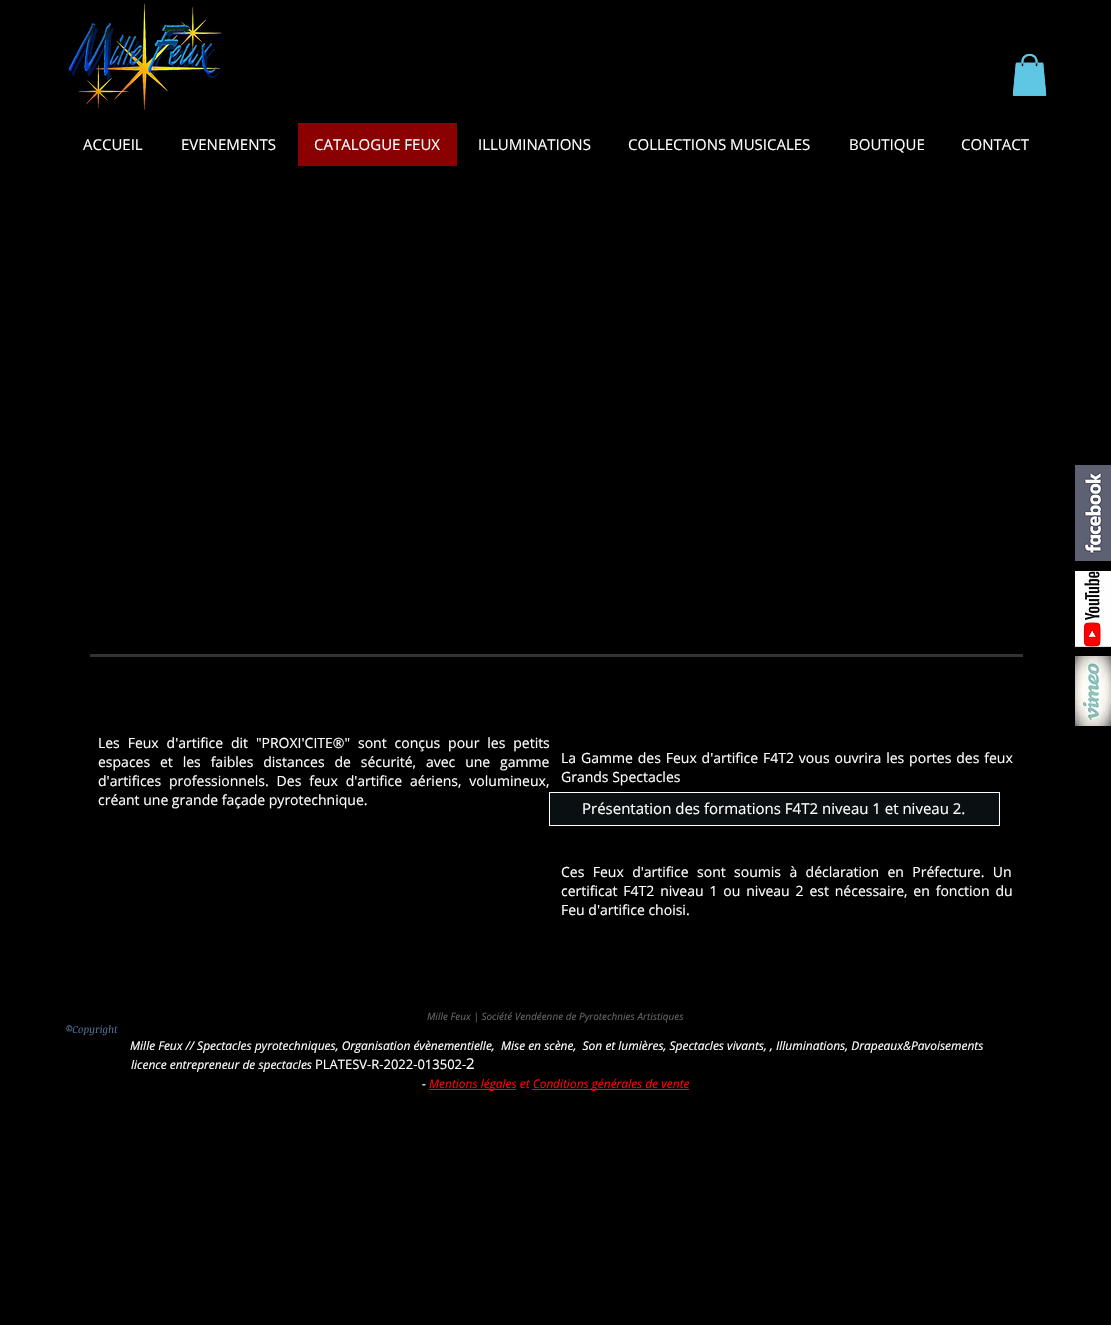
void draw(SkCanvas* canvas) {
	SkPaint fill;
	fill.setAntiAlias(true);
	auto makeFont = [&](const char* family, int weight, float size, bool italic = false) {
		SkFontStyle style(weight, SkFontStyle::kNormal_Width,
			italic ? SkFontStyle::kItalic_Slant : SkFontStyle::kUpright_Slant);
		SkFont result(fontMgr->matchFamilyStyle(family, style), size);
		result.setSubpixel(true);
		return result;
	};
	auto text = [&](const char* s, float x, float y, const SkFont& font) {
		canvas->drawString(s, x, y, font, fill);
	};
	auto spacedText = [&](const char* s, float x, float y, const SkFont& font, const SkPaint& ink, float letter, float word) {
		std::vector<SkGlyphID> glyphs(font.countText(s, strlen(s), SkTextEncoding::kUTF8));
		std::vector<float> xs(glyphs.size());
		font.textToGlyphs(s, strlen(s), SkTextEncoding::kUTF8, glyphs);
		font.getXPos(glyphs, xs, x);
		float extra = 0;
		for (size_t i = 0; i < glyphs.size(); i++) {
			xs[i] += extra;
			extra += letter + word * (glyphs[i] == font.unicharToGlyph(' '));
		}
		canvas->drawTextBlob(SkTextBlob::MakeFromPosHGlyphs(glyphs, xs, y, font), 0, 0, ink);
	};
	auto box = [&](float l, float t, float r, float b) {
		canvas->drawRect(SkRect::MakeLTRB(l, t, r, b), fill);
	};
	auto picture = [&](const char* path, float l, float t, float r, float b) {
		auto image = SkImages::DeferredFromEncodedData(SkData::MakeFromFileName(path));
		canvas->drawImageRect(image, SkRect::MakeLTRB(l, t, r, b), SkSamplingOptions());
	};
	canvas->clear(0xFF000000);
	picture("image0.png", 68, 3, 222, 110);
	picture("image1.png", 1012, 54, 1047, 96);
	picture("image2.png", 1012, 54, 1047, 96);
	fill.setColor(0xFF8B0000);
	box(298, 123, 457, 166);
	picture("image3.png", 1075, 465, 1111, 561);
	picture("image4.png", 1075, 571, 1111, 647);
	picture("image5.png", 1075, 656, 1111, 726);
	fill.setColor(0xFF333333);
	box(90, 654, 1023, 657);
	fill.setColor(0xFF0A0F11);
	canvas->drawRect(SkRect::MakeLTRB(549.5f, 792.5f, 999.5f, 825.5f), fill);
	fill.setStyle(SkPaint::kStroke_Style);
	fill.setStrokeWidth(1);
	fill.setColor(0xFFFFFFFF);
	canvas->drawRect(SkRect::MakeLTRB(549.5f, 792.5f, 999.5f, 825.5f), fill);
	fill.setStyle(SkPaint::kFill_Style);
	fill.setColor(0xFFFC0303);
	box(429, 1089, 516, 1090);
	box(532, 1089, 689, 1090);
	auto font1 = makeFont("Open Sans", 400, 15);
	fill.setColor(0xFFFFFFFF);
	text("ACCUEIL", 83, 150, font1);
	text("EVENEMENTS", 181, 150, font1);
	text("CATALOGUE FEUX", 314, 150, font1);
	text("ILLUMINATIONS", 478, 150, font1);
	text("COLLECTIONS MUSICALES", 628, 150, font1);
	text("BOUTIQUE", 849, 150, font1);
	text("CONTACT", 961, 150, font1);
	auto font2 = makeFont("Open Sans", 400, 14);
	spacedText("Les Feux d'artifice dit \"PROXI'CITE®\" sont conçus pour les petits", 98, 748, font2, fill, 0, 4.25f);
	spacedText("espaces et les faibles distances de sécurité, avec une gamme", 98, 767, font2, fill, 0, 6.25f);
	spacedText("d'artifices professionnels. Des feux d'artifice aériens, volumineux,", 98, 786, font2, fill, 0, 4.25f);
	text("créant une grande façade pyrotechnique.", 98, 805, font2);
	spacedText("La Gamme des Feux d'artifice F4T2 vous ouvrira les portes des feux", 561, 763, font2, fill, 0, 1.25f);
	text("Grands Spectacles", 561, 782, font2);
	spacedText("Ces Feux d'artifice sont soumis à déclaration en Préfecture. Un", 561, 877, font2, fill, 0, 4.75f);
	spacedText("certificat F4T2 niveau 1 ou niveau 2 est nécessaire, en fonction du", 561, 896, font2, fill, 0, 2.25f);
	text("Feu d'artifice choisi.", 561, 915, font2);
	text("Présentation des formations F4T2 niveau 1 et niveau 2.", 582, 814, font1);
	auto font3 = makeFont("Open Sans", 400, 10, true);
	fill.setColor(0xFF666666);
	text("Mille Feux | Société Vendéenne de Pyrotechnies Artistiques", 427, 1020, font3);
	auto font4 = makeFont("Noticia Text", 400, 10, true);
	fill.setColor(0xFF567199);
	text("©Copyright", 66, 1033, font4);
	auto font5 = makeFont("Open Sans", 400, 12, true);
	fill.setColor(0xFFFFFFFF);
	text("Mille Feux // Spectacles pyrotechniques, Organisation évènementielle,  Mise en scène,  Son et lumières, Spectacles vivants, , Illuminations, Drapeaux&Pavoisements", 130, 1050, font5);
	text("licence entrepreneur de spectacles", 131, 1069, font5);
	auto font6 = makeFont("Open Sans", 400, 13);
	text("PLATESV-R-2022-013502-", 315, 1069, font6);
	text("2", 466, 1069, font1);
	text("-", 422, 1088, font5);
	fill.setColor(0xFFFC0303);
	text("Mentions légales et Con", 429, 1088, font5);
	text("ditions générales de vente", 553, 1088, font5);
}
